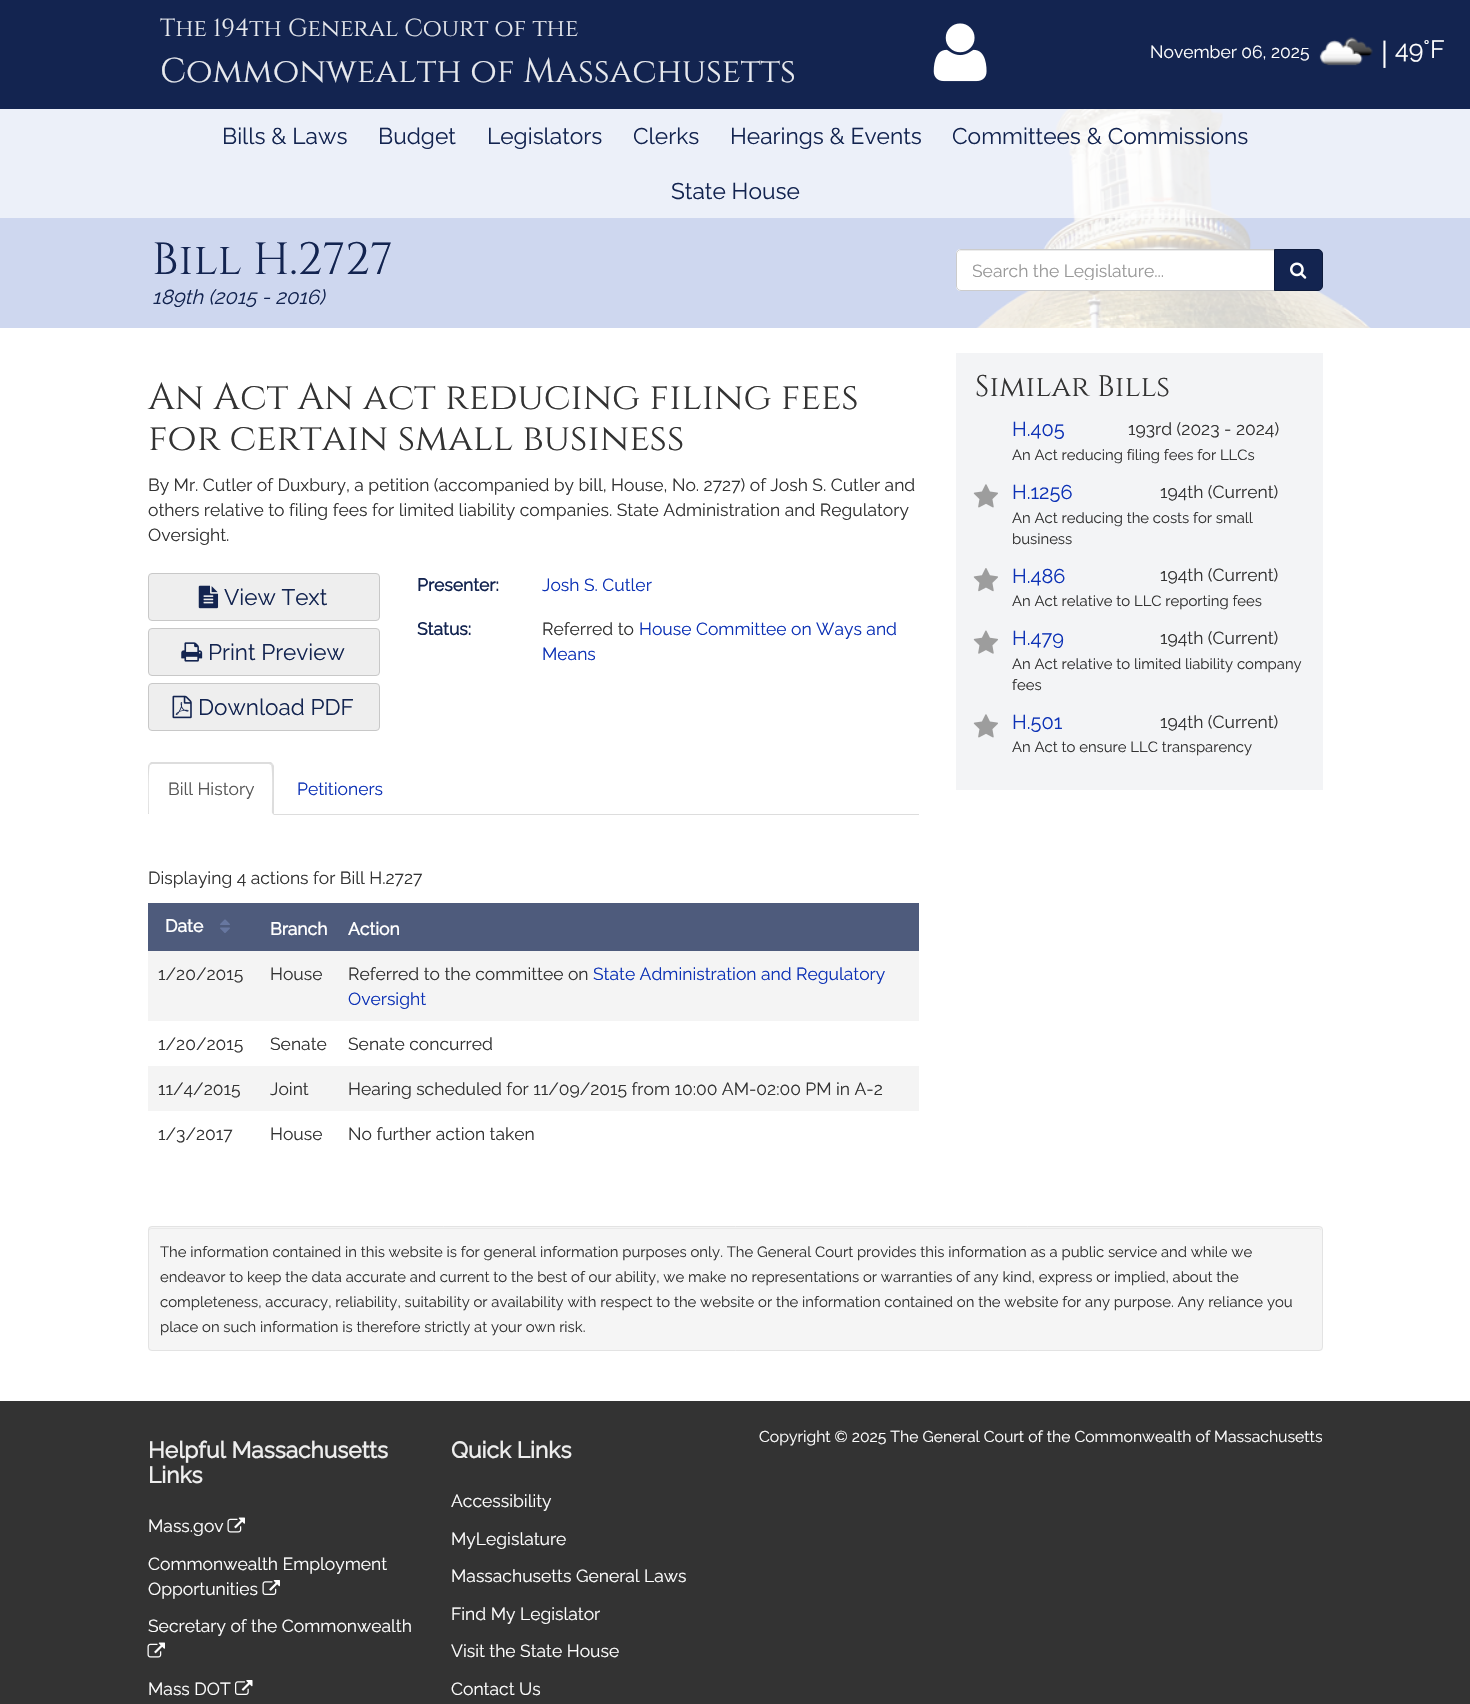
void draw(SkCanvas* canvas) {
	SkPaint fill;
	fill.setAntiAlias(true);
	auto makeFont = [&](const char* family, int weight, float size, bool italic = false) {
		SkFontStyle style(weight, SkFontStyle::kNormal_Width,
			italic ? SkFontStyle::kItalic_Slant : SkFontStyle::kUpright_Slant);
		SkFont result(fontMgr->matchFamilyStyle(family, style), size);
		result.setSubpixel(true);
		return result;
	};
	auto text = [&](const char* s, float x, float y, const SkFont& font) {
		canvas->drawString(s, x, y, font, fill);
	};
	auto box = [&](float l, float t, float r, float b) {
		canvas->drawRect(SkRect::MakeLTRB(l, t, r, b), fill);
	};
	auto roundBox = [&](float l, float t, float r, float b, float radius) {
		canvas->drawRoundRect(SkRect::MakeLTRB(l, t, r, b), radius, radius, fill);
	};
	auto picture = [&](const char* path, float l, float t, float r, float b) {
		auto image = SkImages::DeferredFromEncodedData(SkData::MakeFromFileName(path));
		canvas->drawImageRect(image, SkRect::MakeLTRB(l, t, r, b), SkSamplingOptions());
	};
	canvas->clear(0xFF333333);
	picture("image0.png", 0, 109, 1470, 328);
	fill.setColor(0xFF132450);
	box(0, 0, 1470, 109);
	picture("image1.png", 933, 23, 987, 82);
	picture("image2.png", 1319, 37, 1373, 66);
	fill.setColor(0xE6FFFFFF);
	box(0, 109, 1470, 218);
	fill.setColor(0xBFFFFFFF);
	box(0, 218, 1470, 328);
	fill.setColor(0xFFFFFFFF);
	canvas->drawPath(SkPathBuilder().moveTo(961, 249).lineTo(1275, 249).lineTo(1275, 291).lineTo(961, 291).cubicTo(958, 291, 956, 289, 956, 286).lineTo(956, 254).cubicTo(956, 251, 958, 249, 961, 249).close().detach(), fill);
	fill.setColor(0xFFECECEC);
	canvas->drawPath(SkPathBuilder().moveTo(961, 251).lineTo(1274, 251).lineTo(1274, 250).lineTo(962, 250).cubicTo(960, 250, 958, 252, 958, 254).lineTo(958, 255).cubicTo(958, 253, 959, 251, 961, 251).close().detach(), fill);
	fill.setStyle(SkPaint::kStroke_Style);
	fill.setStrokeWidth(1);
	fill.setColor(0xFFCCCCCC);
	canvas->drawPath(SkPathBuilder().moveTo(961, 249.5f).lineTo(1274.5f, 249.5f).lineTo(1274.5f, 290.5f).lineTo(961, 290.5f).cubicTo(958.5f, 290.5f, 956.5f, 288.5f, 956.5f, 286).lineTo(956.5f, 254).cubicTo(956.5f, 251.5f, 958.5f, 249.5f, 961, 249.5f).close().detach(), fill);
	fill.setStyle(SkPaint::kFill_Style);
	fill.setColor(0xFF132450);
	canvas->drawPath(SkPathBuilder().moveTo(1274.5f, 249.5f).lineTo(1318, 249.5f).cubicTo(1320.5f, 249.5f, 1322.5f, 251.5f, 1322.5f, 254).lineTo(1322.5f, 286).cubicTo(1322.5f, 288.5f, 1320.5f, 290.5f, 1318, 290.5f).lineTo(1274.5f, 290.5f).close().detach(), fill);
	fill.setStyle(SkPaint::kStroke_Style);
	fill.setColor(0xFF0E1B3B);
	canvas->drawPath(SkPathBuilder().moveTo(1274.5f, 249.5f).lineTo(1318, 249.5f).cubicTo(1320.5f, 249.5f, 1322.5f, 251.5f, 1322.5f, 254).lineTo(1322.5f, 286).cubicTo(1322.5f, 288.5f, 1320.5f, 290.5f, 1318, 290.5f).lineTo(1274.5f, 290.5f).close().detach(), fill);
	picture("image3.png", 1290, 262, 1307, 279);
	fill.setStyle(SkPaint::kFill_Style);
	fill.setColor(0xFFFFFFFF);
	box(0, 328, 1470, 1401);
	fill.setColor(0xFFEEEEEE);
	canvas->drawRoundRect(SkRect::MakeLTRB(148.5f, 573.5f, 379.5f, 620.5f), 3.5f, 3.5f, fill);
	fill.setStyle(SkPaint::kStroke_Style);
	fill.setColor(0xFFC8C8C8);
	canvas->drawRoundRect(SkRect::MakeLTRB(148.5f, 573.5f, 379.5f, 620.5f), 3.5f, 3.5f, fill);
	picture("image4.png", 198, 585, 219, 609);
	fill.setStyle(SkPaint::kFill_Style);
	fill.setColor(0xFFEEEEEE);
	canvas->drawRoundRect(SkRect::MakeLTRB(148.5f, 628.5f, 379.5f, 675.5f), 3.5f, 3.5f, fill);
	fill.setStyle(SkPaint::kStroke_Style);
	fill.setColor(0xFFC8C8C8);
	canvas->drawRoundRect(SkRect::MakeLTRB(148.5f, 628.5f, 379.5f, 675.5f), 3.5f, 3.5f, fill);
	picture("image5.png", 181, 642, 203, 662);
	fill.setStyle(SkPaint::kFill_Style);
	fill.setColor(0xFFEEEEEE);
	canvas->drawRoundRect(SkRect::MakeLTRB(148.5f, 683.5f, 379.5f, 730.5f), 3.5f, 3.5f, fill);
	fill.setStyle(SkPaint::kStroke_Style);
	fill.setColor(0xFFC8C8C8);
	canvas->drawRoundRect(SkRect::MakeLTRB(148.5f, 683.5f, 379.5f, 730.5f), 3.5f, 3.5f, fill);
	picture("image6.png", 172, 695, 192, 719);
	fill.setStyle(SkPaint::kFill_Style);
	fill.setColor(0xFFDDDDDD);
	box(274, 814, 919, 815);
	canvas->drawPath(SkPathBuilder().moveTo(152, 764).lineTo(150, 765).lineTo(149, 764).lineTo(151, 762).lineTo(271, 762).lineTo(273, 764).lineTo(271, 765).lineTo(269, 764).close().detach(), fill);
	canvas->drawPath(SkPathBuilder().moveTo(274, 766).lineTo(274, 815).lineTo(272, 813).cubicTo(272, 807, 273, 767, 271, 765).lineTo(273, 764).close().detach(), fill);
	canvas->drawPath(SkPathBuilder().moveTo(148, 814).lineTo(148, 768).cubicTo(148, 767, 148, 765, 149, 764).lineTo(150, 765).cubicTo(148, 767, 149, 808, 149, 814).close().detach(), fill);
	fill.setColor(0xFF4E5B7C);
	box(148, 903, 919, 951);
	picture("image7.png", 220, 919, 230, 933);
	fill.setColor(0xFFF4F4F4);
	box(148, 951, 919, 1021);
	box(148, 1066, 919, 1111);
	fill.setColor(0xFFF3F4F6);
	box(956, 353, 1323, 790);
	picture("image8.png", 973, 484, 998, 508);
	picture("image9.png", 973, 568, 998, 592);
	picture("image10.png", 973, 630, 998, 654);
	picture("image8.png", 973, 714, 998, 738);
	fill.setColor(0xFFF5F5F5);
	roundBox(148, 1226, 1323, 1351, 4);
	fill.setColor(0xFFE9E9E9);
	canvas->drawPath(SkPathBuilder().moveTo(151, 1229).lineTo(1319, 1229).cubicTo(1320, 1229, 1321, 1230, 1321, 1231).lineTo(1321, 1230).cubicTo(1321, 1229, 1320, 1228, 1318, 1228).lineTo(152, 1228).cubicTo(150, 1228, 149, 1229, 149, 1230).lineTo(149, 1231).cubicTo(149, 1230, 150, 1229, 151, 1229).close().detach(), fill);
	fill.setStyle(SkPaint::kStroke_Style);
	fill.setColor(0xFFE3E3E3);
	canvas->drawRoundRect(SkRect::MakeLTRB(148.5f, 1226.5f, 1322.5f, 1350.5f), 3.5f, 3.5f, fill);
	picture("image11.png", 227, 1517, 245, 1533);
	picture("image12.png", 262, 1580, 280, 1595);
	picture("image11.png", 147, 1642, 165, 1658);
	picture("image13.png", 235, 1680, 253, 1695);
	auto font1 = makeFont("Cinzel", 400, 24.5f);
	fill.setStyle(SkPaint::kFill_Style);
	fill.setColor(0xFFE7E9EE);
	text("The 194th General Court of the", 160, 36, font1);
	auto font2 = makeFont("Cinzel", 400, 34.25f);
	text("Commonwealth of Massachusetts", 160, 82, font2);
	auto font3 = makeFont("Raleway", 100, 17.5f);
	fill.setColor(0xFFFFFFFF);
	text("November 06, 2025", 1150, 58, font3);
	auto font4 = makeFont("Raleway", 100, 30);
	text("|", 1381, 64, font4);
	auto font5 = makeFont("Raleway", 100, 25);
	text("49°F", 1395, 58, font5);
	auto font6 = makeFont("Raleway", 100, 22.75f);
	fill.setColor(0xFF132450);
	text("Bills & Laws", 222, 144, font6);
	text("Budget", 378, 144, font6);
	text("Legislators", 487, 144, font6);
	text("Clerks", 633, 144, font6);
	text("Hearings & Events", 730, 144, font6);
	text("Committees & Commissions", 952, 144, font6);
	text("State House", 671, 199, font6);
	auto font7 = makeFont("Cinzel", 400, 45);
	text("Bill H.2727", 152, 274, font7);
	auto font8 = makeFont("Raleway", 100, 20.25f, true);
	text("189th (2015 - 2016)", 152, 304, font8);
	canvas->save();
	canvas->clipRect(SkRect::MakeLTRB(973, 260, 1254, 280));
	fill.setColor(0xFF999999);
	text("Search the Legislature...", 972, 277, font3);
	canvas->restore();
	auto font9 = makeFont("Cinzel", 400, 37.5f);
	fill.setColor(0xFF333333);
	text("An Act An act reducing filing fees", 148, 409, font9);
	text("for certain small business", 148, 450, font9);
	text("By Mr. Cutler of Duxbury, a petition (accompanied by bill, House, No. 2727) of Josh S. Cutler and", 148, 491, font3);
	text("others relative to filing fees for limited liability companies. State Administration and Regulatory", 148, 516, font3);
	text("Oversight.", 148, 541, font3);
	auto font10 = makeFont("Raleway", 100, 22.5f);
	fill.setColor(0xFF132450);
	text("View Text", 224, 605, font10);
	text("Print Preview", 208, 660, font10);
	text("Download PDF", 198, 715, font10);
	auto font11 = makeFont("Raleway", 700, 17.5f);
	text("Presenter:", 417, 591, font11);
	fill.setColor(0xFF0D32B6);
	text("Josh S. Cutler", 542, 591, font3);
	fill.setColor(0xFF132450);
	text("Status:", 417, 635, font11);
	fill.setColor(0xFF333333);
	text("Referred to", 542, 635, font3);
	fill.setColor(0xFF0D32B6);
	text("House Committee on Ways and", 639, 635, font3);
	text("Means", 542, 660, font3);
	fill.setColor(0xFF555555);
	text("Bill History", 168, 795, font3);
	fill.setColor(0xFF0D32B6);
	text("Petitioners", 297, 795, font3);
	fill.setColor(0xFF333333);
	text("Displaying 4 actions for Bill H.2727", 148, 884, font3);
	fill.setColor(0xFFFFFFFF);
	text("Date", 165, 932, font11);
	text("Branch", 270, 935, font11);
	text("Action", 348, 935, font11);
	fill.setColor(0xFF333333);
	text("1/20/2015", 158, 980, font3);
	text("House", 270, 980, font3);
	text("Referred to the committee on", 348, 980, font3);
	fill.setColor(0xFF0D32B6);
	text("State Administration and Regulatory", 593, 980, font3);
	text("Oversight", 348, 1005, font3);
	fill.setColor(0xFF333333);
	text("1/20/2015", 158, 1050, font3);
	text("Senate", 270, 1050, font3);
	text("Senate concurred", 348, 1050, font3);
	text("11/4/2015", 158, 1095, font3);
	text("Joint", 270, 1095, font3);
	text("Hearing scheduled for 11/09/2015 from 10:00 AM-02:00 PM in A-2", 348, 1095, font3);
	text("1/3/2017", 158, 1140, font3);
	text("House", 270, 1140, font3);
	text("No further action taken", 348, 1140, font3);
	auto font12 = makeFont("Cinzel", 400, 29.75f);
	text("Similar Bills", 975, 396, font12);
	auto font13 = makeFont("Raleway", 100, 20);
	fill.setColor(0xFF0D32B6);
	text("H.405", 1012, 436, font13);
	fill.setColor(0xFF333333);
	text("193rd (2023 - 2024)", 1128, 435, font3);
	auto font14 = makeFont("Raleway", 100, 14.88f);
	text("An Act reducing filing fees for LLCs", 1012, 460, font14);
	fill.setColor(0xFF0D32B6);
	text("H.1256", 1012, 499, font13);
	fill.setColor(0xFF333333);
	text("194th (Current)", 1160, 498, font3);
	text("An Act reducing the costs for small", 1012, 523, font14);
	text("business", 1012, 544, font14);
	fill.setColor(0xFF0D32B6);
	text("H.486", 1012, 583, font13);
	fill.setColor(0xFF333333);
	text("194th (Current)", 1160, 581, font3);
	text("An Act relative to LLC reporting fees", 1012, 606, font14);
	fill.setColor(0xFF0D32B6);
	text("H.479", 1012, 645, font13);
	fill.setColor(0xFF333333);
	text("194th (Current)", 1160, 644, font3);
	text("An Act relative to limited liability company", 1012, 669, font14);
	text("fees", 1012, 690, font14);
	fill.setColor(0xFF0D32B6);
	text("H.501", 1012, 729, font13);
	fill.setColor(0xFF333333);
	text("194th (Current)", 1160, 728, font3);
	text("An Act to ensure LLC transparency", 1012, 752, font14);
	text("The information contained in this website is for general information purposes only. The General Court provides this information as a public service and while we", 160, 1257, font14);
	text("endeavor to keep the data accurate and current to the best of our ability, we make no representations or warranties of any kind, express or implied, about the", 160, 1282, font14);
	text("completeness, accuracy, reliability, suitability or availability with respect to the website or the information contained on the website for any purpose. Any reliance you", 160, 1307, font14);
	text("place on such information is therefore strictly at your own risk.", 160, 1332, font14);
	auto font15 = makeFont("Raleway", 100, 15.75f);
	fill.setColor(0xFFFFFFFF);
	text("Copyright © 2025 The General Court of the Commonwealth of Massachusetts", 759, 1442, font15);
	auto font16 = makeFont("Raleway", 700, 22.75f);
	fill.setColor(0xFFEEEEEE);
	text("Helpful Massachusetts", 148, 1458, font16);
	text("Links", 148, 1483, font16);
	fill.setColor(0xFFFFFFFF);
	text("Mass.gov", 148, 1532, font3);
	text("Commonwealth Employment", 148, 1570, font3);
	text("Opportunities", 148, 1595, font3);
	text("Secretary of the Commonwealth", 148, 1632, font3);
	text("Mass DOT", 148, 1695, font3);
	fill.setColor(0xFFEEEEEE);
	text("Quick Links", 451, 1458, font16);
	fill.setColor(0xFFFFFFFF);
	text("Accessibility", 451, 1507, font3);
	text("MyLegislature", 451, 1545, font3);
	text("Massachusetts General Laws", 451, 1582, font3);
	text("Find My Legislator", 451, 1620, font3);
	text("Visit the State House", 451, 1657, font3);
	text("Contact Us", 451, 1695, font3);
}
